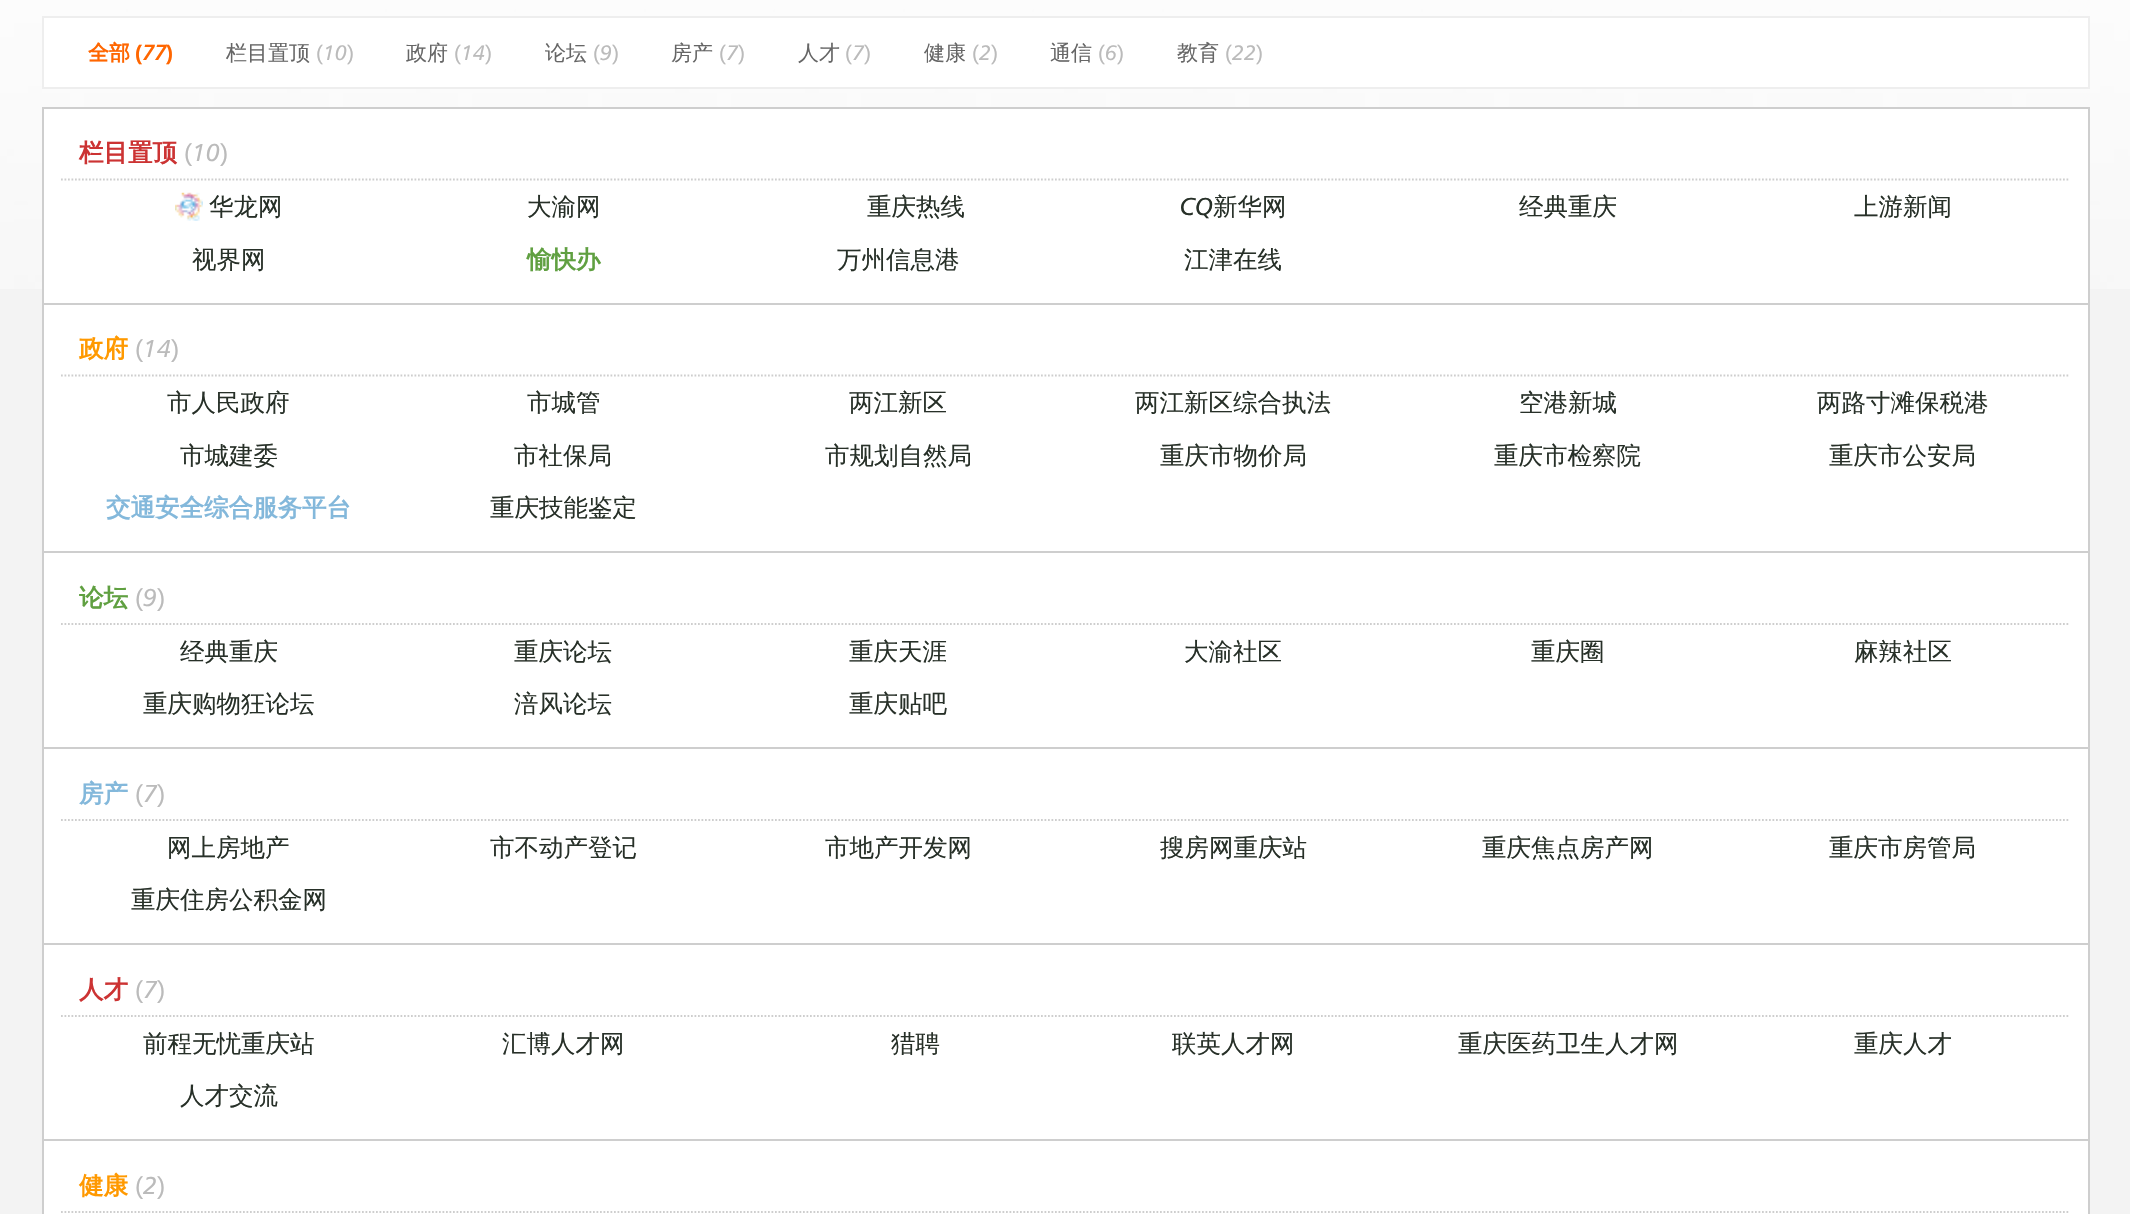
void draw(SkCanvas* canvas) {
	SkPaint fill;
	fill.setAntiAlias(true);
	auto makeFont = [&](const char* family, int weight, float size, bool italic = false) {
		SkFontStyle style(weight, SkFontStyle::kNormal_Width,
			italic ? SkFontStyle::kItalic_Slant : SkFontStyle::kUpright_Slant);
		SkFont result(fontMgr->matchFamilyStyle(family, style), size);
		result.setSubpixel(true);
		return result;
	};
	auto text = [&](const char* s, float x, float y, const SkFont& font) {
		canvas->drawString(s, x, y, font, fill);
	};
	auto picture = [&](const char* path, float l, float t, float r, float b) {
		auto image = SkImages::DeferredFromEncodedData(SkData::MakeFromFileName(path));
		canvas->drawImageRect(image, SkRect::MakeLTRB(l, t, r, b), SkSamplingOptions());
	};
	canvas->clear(0xFFF3F3F3);
	picture("image0.png", 0, 0, 2130, 289);
	fill.setColor(0xFFFFFFFF);
	canvas->drawRect(SkRect::MakeLTRB(43, 17, 2089, 88), fill);
	fill.setStyle(SkPaint::kStroke_Style);
	fill.setStrokeWidth(2);
	fill.setColor(0xFFEEEEEE);
	canvas->drawRect(SkRect::MakeLTRB(43, 17, 2089, 88), fill);
	fill.setStyle(SkPaint::kFill_Style);
	fill.setColor(0xFFFFFFFF);
	canvas->drawRect(SkRect::MakeLTRB(43, 108, 2089, 304), fill);
	fill.setStyle(SkPaint::kStroke_Style);
	fill.setColor(0xFFCECECE);
	canvas->drawRect(SkRect::MakeLTRB(43, 108, 2089, 304), fill);
	fill.setStrokeWidth(1.8f);
	fill.setPathEffect(SkDashPathEffect::Make({{1.75f, 1.75f}}, 0));
	canvas->drawPath(SkPathBuilder().moveTo(61, 179.5f).lineTo(2070, 179.5f).detach(), fill);
	fill.setPathEffect(nullptr);
	picture("image1.png", 175, 192, 203, 221);
	fill.setStyle(SkPaint::kFill_Style);
	fill.setColor(0xFFFFFFFF);
	canvas->drawRect(SkRect::MakeLTRB(43, 304, 2089, 552), fill);
	fill.setStyle(SkPaint::kStroke_Style);
	fill.setStrokeWidth(2);
	fill.setColor(0xFFCECECE);
	canvas->drawRect(SkRect::MakeLTRB(43, 304, 2089, 552), fill);
	fill.setStrokeWidth(1.8f);
	fill.setPathEffect(SkDashPathEffect::Make({{1.75f, 1.75f}}, 0));
	canvas->drawPath(SkPathBuilder().moveTo(61, 375.5f).lineTo(2070, 375.5f).detach(), fill);
	fill.setPathEffect(nullptr);
	fill.setStyle(SkPaint::kFill_Style);
	fill.setColor(0xFFFFFFFF);
	canvas->drawRect(SkRect::MakeLTRB(43, 552, 2089, 748), fill);
	fill.setStyle(SkPaint::kStroke_Style);
	fill.setStrokeWidth(2);
	fill.setColor(0xFFCECECE);
	canvas->drawRect(SkRect::MakeLTRB(43, 552, 2089, 748), fill);
	fill.setStrokeWidth(1.8f);
	fill.setPathEffect(SkDashPathEffect::Make({{1.75f, 1.75f}}, 0));
	canvas->drawPath(SkPathBuilder().moveTo(61, 624).lineTo(2070, 624).detach(), fill);
	fill.setPathEffect(nullptr);
	fill.setStyle(SkPaint::kFill_Style);
	fill.setColor(0xFFFFFFFF);
	canvas->drawRect(SkRect::MakeLTRB(43, 748, 2089, 944), fill);
	fill.setStyle(SkPaint::kStroke_Style);
	fill.setStrokeWidth(2);
	fill.setColor(0xFFCECECE);
	canvas->drawRect(SkRect::MakeLTRB(43, 748, 2089, 944), fill);
	fill.setStrokeWidth(1.8f);
	fill.setPathEffect(SkDashPathEffect::Make({{1.75f, 1.75f}}, 0));
	canvas->drawPath(SkPathBuilder().moveTo(61, 820).lineTo(2070, 820).detach(), fill);
	fill.setPathEffect(nullptr);
	fill.setStyle(SkPaint::kFill_Style);
	fill.setColor(0xFFFFFFFF);
	canvas->drawRect(SkRect::MakeLTRB(43, 944, 2089, 1140), fill);
	fill.setStyle(SkPaint::kStroke_Style);
	fill.setStrokeWidth(2);
	fill.setColor(0xFFCECECE);
	canvas->drawRect(SkRect::MakeLTRB(43, 944, 2089, 1140), fill);
	fill.setStrokeWidth(1.8f);
	fill.setPathEffect(SkDashPathEffect::Make({{1.75f, 1.75f}}, 0));
	canvas->drawPath(SkPathBuilder().moveTo(61, 1016).lineTo(2070, 1016).detach(), fill);
	fill.setPathEffect(nullptr);
	fill.setStyle(SkPaint::kFill_Style);
	fill.setColor(0xFFFFFFFF);
	canvas->drawRect(SkRect::MakeLTRB(43, 1140, 2089, 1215), fill);
	fill.setStyle(SkPaint::kStroke_Style);
	fill.setStrokeWidth(2);
	fill.setColor(0xFFCECECE);
	canvas->drawRect(SkRect::MakeLTRB(43, 1140, 2089, 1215), fill);
	fill.setStrokeWidth(1.8f);
	fill.setPathEffect(SkDashPathEffect::Make({{1.75f, 1.75f}}, 0));
	canvas->drawPath(SkPathBuilder().moveTo(61, 1212).lineTo(2070, 1212).detach(), fill);
	fill.setPathEffect(nullptr);
	auto font1 = makeFont("WenQuanYi Zen Hei", 700, 21);
	fill.setStyle(SkPaint::kFill_Style);
	fill.setColor(0xFFFF6600);
	text("全部", 88, 60, font1);
	auto font2 = makeFont("Liberation Sans", 700, 21);
	text("(", 135, 60, font2);
	auto font3 = makeFont("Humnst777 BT", 700, 21, true);
	text("77", 142, 60, font3);
	text(")", 166, 60, font2);
	auto font4 = makeFont("WenQuanYi Zen Hei", 500, 21);
	fill.setColor(0xFF666666);
	text("栏目置顶", 226, 60, font4);
	auto font5 = makeFont("Liberation Sans", 400, 21);
	fill.setColor(0xFFBBBBBB);
	text("(", 316, 60, font5);
	auto font6 = makeFont("Humnst777 BT", 400, 21, true);
	text("10", 323, 60, font6);
	text(")", 347, 60, font5);
	fill.setColor(0xFF666666);
	text("政府", 406, 60, font4);
	fill.setColor(0xFFBBBBBB);
	text("(", 454, 60, font5);
	text("14", 461, 60, font6);
	text(")", 485, 60, font5);
	fill.setColor(0xFF666666);
	text("论坛", 545, 60, font4);
	fill.setColor(0xFFBBBBBB);
	text("(", 593, 60, font5);
	text("9", 600, 60, font6);
	text(")", 612, 60, font5);
	fill.setColor(0xFF666666);
	text("房产", 671, 60, font4);
	fill.setColor(0xFFBBBBBB);
	text("(", 719, 60, font5);
	text("7", 726, 60, font6);
	text(")", 738, 60, font5);
	fill.setColor(0xFF666666);
	text("人才", 798, 60, font4);
	fill.setColor(0xFFBBBBBB);
	text("(", 845, 60, font5);
	text("7", 852, 60, font6);
	text(")", 864, 60, font5);
	fill.setColor(0xFF666666);
	text("健康", 924, 60, font4);
	fill.setColor(0xFFBBBBBB);
	text("(", 972, 60, font5);
	text("2", 979, 60, font6);
	text(")", 991, 60, font5);
	fill.setColor(0xFF666666);
	text("通信", 1050, 60, font4);
	fill.setColor(0xFFBBBBBB);
	text("(", 1098, 60, font5);
	text("6", 1105, 60, font6);
	text(")", 1117, 60, font5);
	fill.setColor(0xFF666666);
	text("教育", 1177, 60, font4);
	fill.setColor(0xFFBBBBBB);
	text("(", 1225, 60, font5);
	text("22", 1232, 60, font6);
	text(")", 1256, 60, font5);
	auto font7 = makeFont("WenQuanYi Zen Hei", 700, 24.5f);
	fill.setColor(0xFFCC3333);
	text("栏目置顶", 79, 161, font7);
	auto font8 = makeFont("Liberation Sans", 400, 24.5f);
	fill.setColor(0xFFBBBBBB);
	text("(", 184, 161, font8);
	auto font9 = makeFont("Humnst777 BT", 400, 24.5f, true);
	text("10", 192, 161, font9);
	text(")", 220, 161, font8);
	auto font10 = makeFont("WenQuanYi Zen Hei", 500, 24.5f);
	fill.setColor(0xFF273028);
	text("华龙网", 209, 215, font10);
	text("大渝网", 527, 215, font10);
	text("重庆热线", 867, 215, font10);
	text("CQ", 1180, 215, font9);
	text("新华网", 1213, 215, font10);
	text("经典重庆", 1519, 215, font10);
	text("上游新闻", 1854, 215, font10);
	text("视界网", 192, 268, font10);
	fill.setColor(0xFF60A041);
	text("愉快办", 527, 268, font7);
	fill.setColor(0xFF273028);
	text("万州信息港", 837, 268, font10);
	text("江津在线", 1184, 268, font10);
	fill.setColor(0xFFFF9900);
	text("政府", 79, 357, font7);
	fill.setColor(0xFFBBBBBB);
	text("(", 135, 357, font8);
	text("14", 143, 357, font9);
	text(")", 171, 357, font8);
	fill.setColor(0xFF273028);
	text("市人民政府", 167, 411, font10);
	text("市城管", 527, 411, font10);
	text("两江新区", 849, 411, font10);
	text("两江新区综合执法", 1135, 411, font10);
	text("空港新城", 1519, 411, font10);
	text("两路寸滩保税港", 1817, 411, font10);
	text("市城建委", 180, 464, font10);
	text("市社保局", 514, 464, font10);
	text("市规划自然局", 825, 464, font10);
	text("重庆市物价局", 1160, 464, font10);
	text("重庆市检察院", 1494, 464, font10);
	text("重庆市公安局", 1829, 464, font10);
	fill.setColor(0xFF83B8DB);
	text("交通安全综合服务平台", 106, 516, font7);
	fill.setColor(0xFF273028);
	text("重庆技能鉴定", 490, 516, font10);
	fill.setColor(0xFF60A041);
	text("论坛", 79, 606, font7);
	fill.setColor(0xFFBBBBBB);
	text("(", 135, 606, font8);
	text("9", 143, 606, font9);
	text(")", 157, 606, font8);
	fill.setColor(0xFF273028);
	text("经典重庆", 180, 660, font10);
	text("重庆论坛", 514, 660, font10);
	text("重庆天涯", 849, 660, font10);
	text("大渝社区", 1184, 660, font10);
	text("重庆圈", 1531, 660, font10);
	text("麻辣社区", 1854, 660, font10);
	text("重庆购物狂论坛", 143, 712, font10);
	text("涪风论坛", 514, 712, font10);
	text("重庆贴吧", 849, 712, font10);
	fill.setColor(0xFF83B8DB);
	text("房产", 79, 802, font7);
	fill.setColor(0xFFBBBBBB);
	text("(", 135, 802, font8);
	text("7", 143, 802, font9);
	text(")", 157, 802, font8);
	fill.setColor(0xFF273028);
	text("网上房地产", 167, 856, font10);
	text("市不动产登记", 490, 856, font10);
	text("市地产开发网", 825, 856, font10);
	text("搜房网重庆站", 1160, 856, font10);
	text("重庆焦点房产网", 1482, 856, font10);
	text("重庆市房管局", 1829, 856, font10);
	text("重庆住房公积金网", 131, 908, font10);
	fill.setColor(0xFFCC3333);
	text("人才", 79, 998, font7);
	fill.setColor(0xFFBBBBBB);
	text("(", 135, 998, font8);
	text("7", 143, 998, font9);
	text(")", 157, 998, font8);
	fill.setColor(0xFF273028);
	text("前程无忧重庆站", 143, 1052, font10);
	text("汇博人才网", 502, 1052, font10);
	text("猎聘", 891, 1052, font10);
	text("联英人才网", 1172, 1052, font10);
	text("重庆医药卫生人才网", 1458, 1052, font10);
	text("重庆人才", 1854, 1052, font10);
	text("人才交流", 180, 1104, font10);
	fill.setColor(0xFFFF9900);
	text("健康", 79, 1194, font7);
	fill.setColor(0xFFBBBBBB);
	text("(", 135, 1194, font8);
	text("2", 143, 1194, font9);
	text(")", 157, 1194, font8);
}
